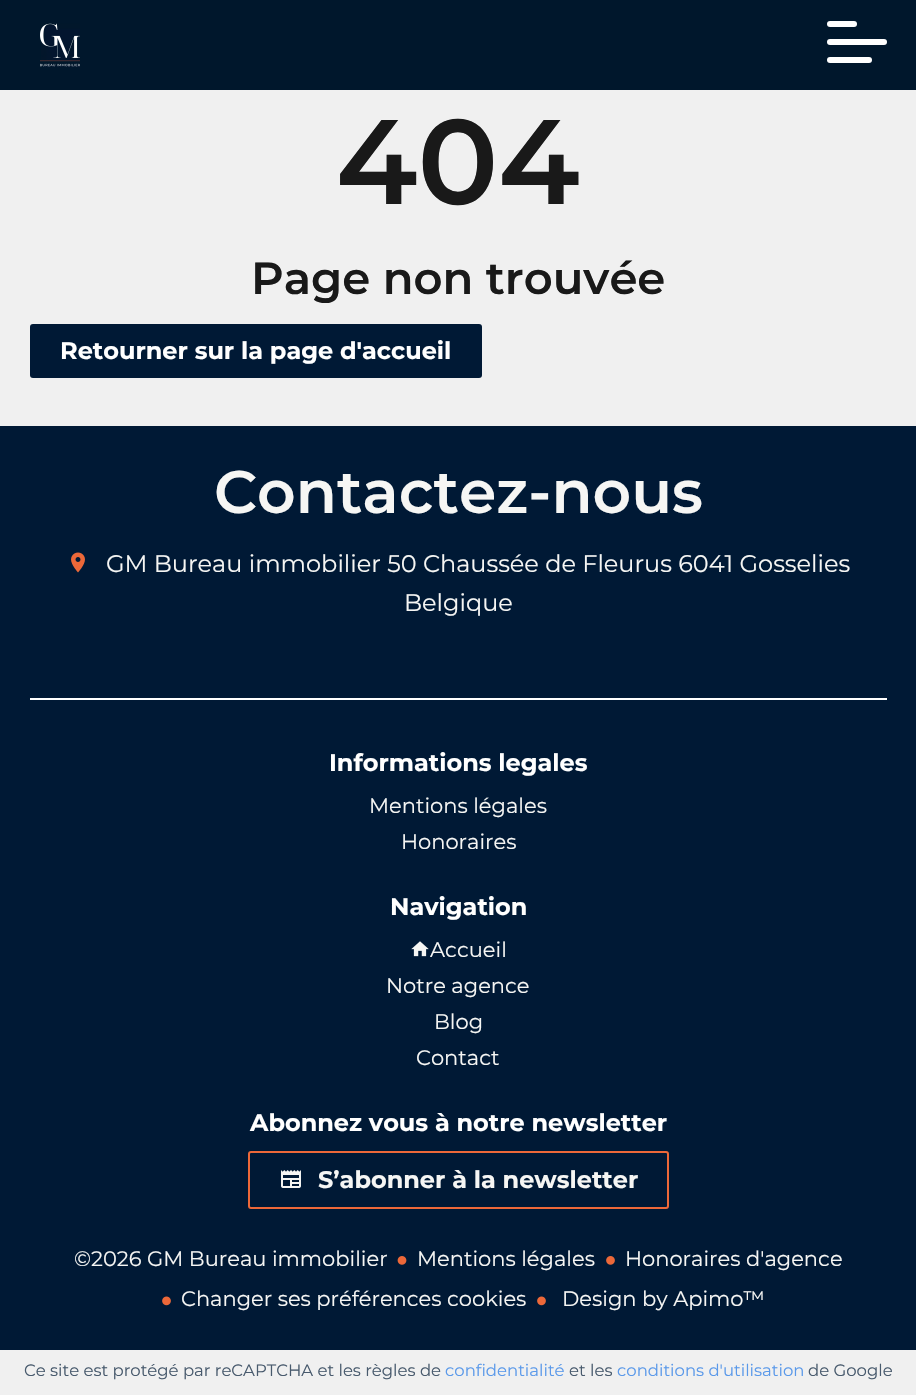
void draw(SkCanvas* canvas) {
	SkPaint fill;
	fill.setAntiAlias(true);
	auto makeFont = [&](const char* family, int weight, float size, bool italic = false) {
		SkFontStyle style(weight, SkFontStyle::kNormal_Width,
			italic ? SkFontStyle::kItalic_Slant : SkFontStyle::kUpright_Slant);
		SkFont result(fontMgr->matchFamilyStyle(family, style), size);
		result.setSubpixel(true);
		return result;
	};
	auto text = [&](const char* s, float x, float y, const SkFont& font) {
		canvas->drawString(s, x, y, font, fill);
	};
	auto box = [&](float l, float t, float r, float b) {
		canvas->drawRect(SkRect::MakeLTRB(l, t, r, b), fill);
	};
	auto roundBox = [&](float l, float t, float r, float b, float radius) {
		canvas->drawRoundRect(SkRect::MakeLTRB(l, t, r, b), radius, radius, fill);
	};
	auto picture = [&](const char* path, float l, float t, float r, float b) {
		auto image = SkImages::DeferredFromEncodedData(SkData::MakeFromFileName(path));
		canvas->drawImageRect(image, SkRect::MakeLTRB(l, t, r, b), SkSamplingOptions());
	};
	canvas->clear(0xFFF0F0F0);
	fill.setColor(0xFF00172C);
	box(0, 0, 916, 90);
	picture("image0.png", 40, 23, 80, 67);
	fill.setColor(0xFFFFFFFF);
	roundBox(827, 21, 857, 27, 3);
	roundBox(827, 39, 887, 45, 3);
	roundBox(827, 57, 872, 63, 3);
	fill.setColor(0xFF001935);
	roundBox(30, 324, 482, 378, 3);
	box(0, 426, 916, 1350);
	picture("image1.png", 71, 552, 85, 573);
	fill.setColor(0xFFFFFFFF);
	box(30, 698, 887, 700);
	picture("image2.png", 411, 941, 429, 957);
	fill.setStyle(SkPaint::kStroke_Style);
	fill.setStrokeWidth(2);
	fill.setColor(0xFFEC6839);
	canvas->drawRoundRect(SkRect::MakeLTRB(249, 1152, 668, 1208), 2, 2, fill);
	picture("image3.png", 281, 1170, 301, 1188);
	picture("image4.png", 397, 1256, 407, 1265);
	picture("image5.png", 606, 1256, 615, 1265);
	picture("image6.png", 162, 1296, 171, 1306);
	picture("image6.png", 537, 1296, 546, 1306);
	auto font1 = makeFont("Montserrat", 600, 120);
	fill.setStyle(SkPaint::kFill_Style);
	fill.setColor(0xFF191919);
	text("404", 336, 204, font1);
	auto font2 = makeFont("Montserrat", 600, 45);
	text("Page non trouvée", 251, 294, font2);
	auto font3 = makeFont("Montserrat", 700, 24);
	fill.setColor(0xFFFFFFFF);
	text("Retourner sur la page d'accueil", 60, 359, font3);
	auto font4 = makeFont("Montserrat", 600, 60);
	fill.setColor(0xFFF6F6F4);
	text("Contactez-nous", 214, 513, font4);
	auto font5 = makeFont("Montserrat", 400, 24);
	text("GM Bureau immobilier 50 Chaussée de Fleurus 6041 Gosselies", 106, 572, font5);
	text("Belgique", 404, 611, font5);
	fill.setColor(0xFFFFFFFF);
	text("Informations legales", 329, 771, font3);
	auto font6 = makeFont("Montserrat", 400, 21);
	fill.setColor(0xFFF6F6F4);
	text("Mentions légales", 369, 813, font6);
	text("Honoraires", 401, 849, font6);
	fill.setColor(0xFFFFFFFF);
	text("Navigation", 390, 915, font3);
	fill.setColor(0xFFF6F6F4);
	text("Accueil", 430, 957, font6);
	text("Notre agence", 386, 993, font6);
	text("Blog", 434, 1029, font6);
	text("Contact", 416, 1065, font6);
	fill.setColor(0xFFFFFFFF);
	text("Abonnez vous à notre newsletter", 250, 1131, font3);
	fill.setColor(0xFFF6F6F4);
	text("S’abonner à la newsletter", 318, 1188, font3);
	text("©2026 GM Bureau immobilier", 74, 1266, font6);
	text("Mentions légales", 417, 1266, font6);
	text("Honoraires d'agence", 625, 1266, font6);
	text("Changer ses préférences cookies", 181, 1306, font6);
	text("Design by Apimo™", 562, 1306, font6);
	auto font7 = makeFont("Montserrat", 400, 16.5f);
	fill.setColor(0xFF485A6D);
	text("Ce site est protégé par reCAPTCHA et les règles de", 24, 1376, font7);
	fill.setColor(0xFF5A99EA);
	text("confidentialité", 445, 1376, font7);
	fill.setColor(0xFF485A6D);
	text("et les", 569, 1376, font7);
	fill.setColor(0xFF5A99EA);
	text("conditions d'utilisation", 617, 1376, font7);
	fill.setColor(0xFF485A6D);
	text("de Google", 808, 1376, font7);
}
